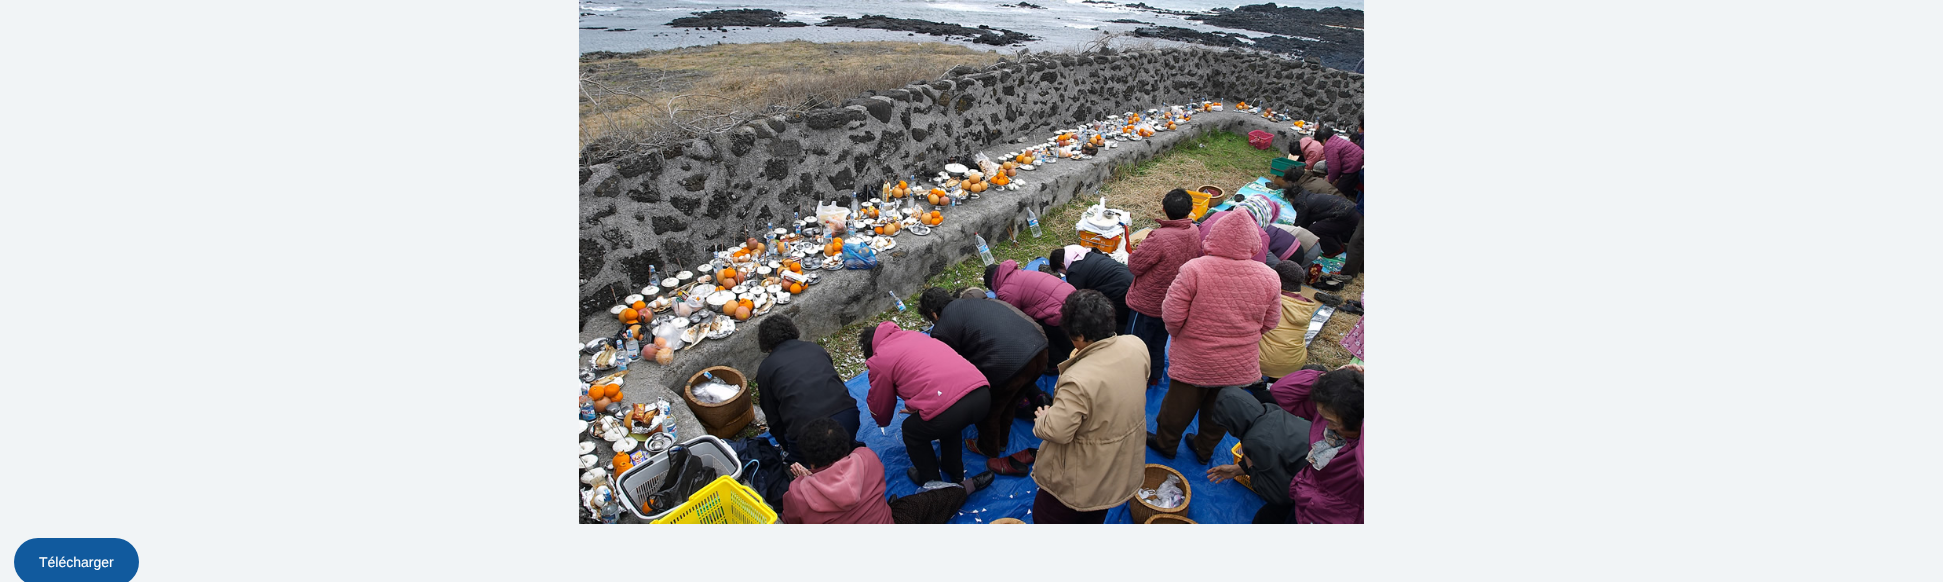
void draw(SkCanvas* canvas) {
	SkPaint fill;
	fill.setAntiAlias(true);
	auto makeFont = [&](const char* family, int weight, float size, bool italic = false) {
		SkFontStyle style(weight, SkFontStyle::kNormal_Width,
			italic ? SkFontStyle::kItalic_Slant : SkFontStyle::kUpright_Slant);
		SkFont result(fontMgr->matchFamilyStyle(family, style), size);
		result.setSubpixel(true);
		return result;
	};
	auto text = [&](const char* s, float x, float y, const SkFont& font) {
		canvas->drawString(s, x, y, font, fill);
	};
	auto roundBox = [&](float l, float t, float r, float b, float radius) {
		canvas->drawRoundRect(SkRect::MakeLTRB(l, t, r, b), radius, radius, fill);
	};
	auto picture = [&](const char* path, float l, float t, float r, float b) {
		auto image = SkImages::DeferredFromEncodedData(SkData::MakeFromFileName(path));
		canvas->drawImageRect(image, SkRect::MakeLTRB(l, t, r, b), SkSamplingOptions());
	};
	canvas->clear(0xFFF1F4F6);
	picture("image0.png", 579, 0, 1364, 524);
	fill.setColor(0xFF115A9E);
	roundBox(14, 538, 139, 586, 24);
	auto font1 = makeFont("Liberation Sans", 400, 14);
	fill.setColor(0xFFFFFFFF);
	text("Télécharger", 39, 567, font1);
}
